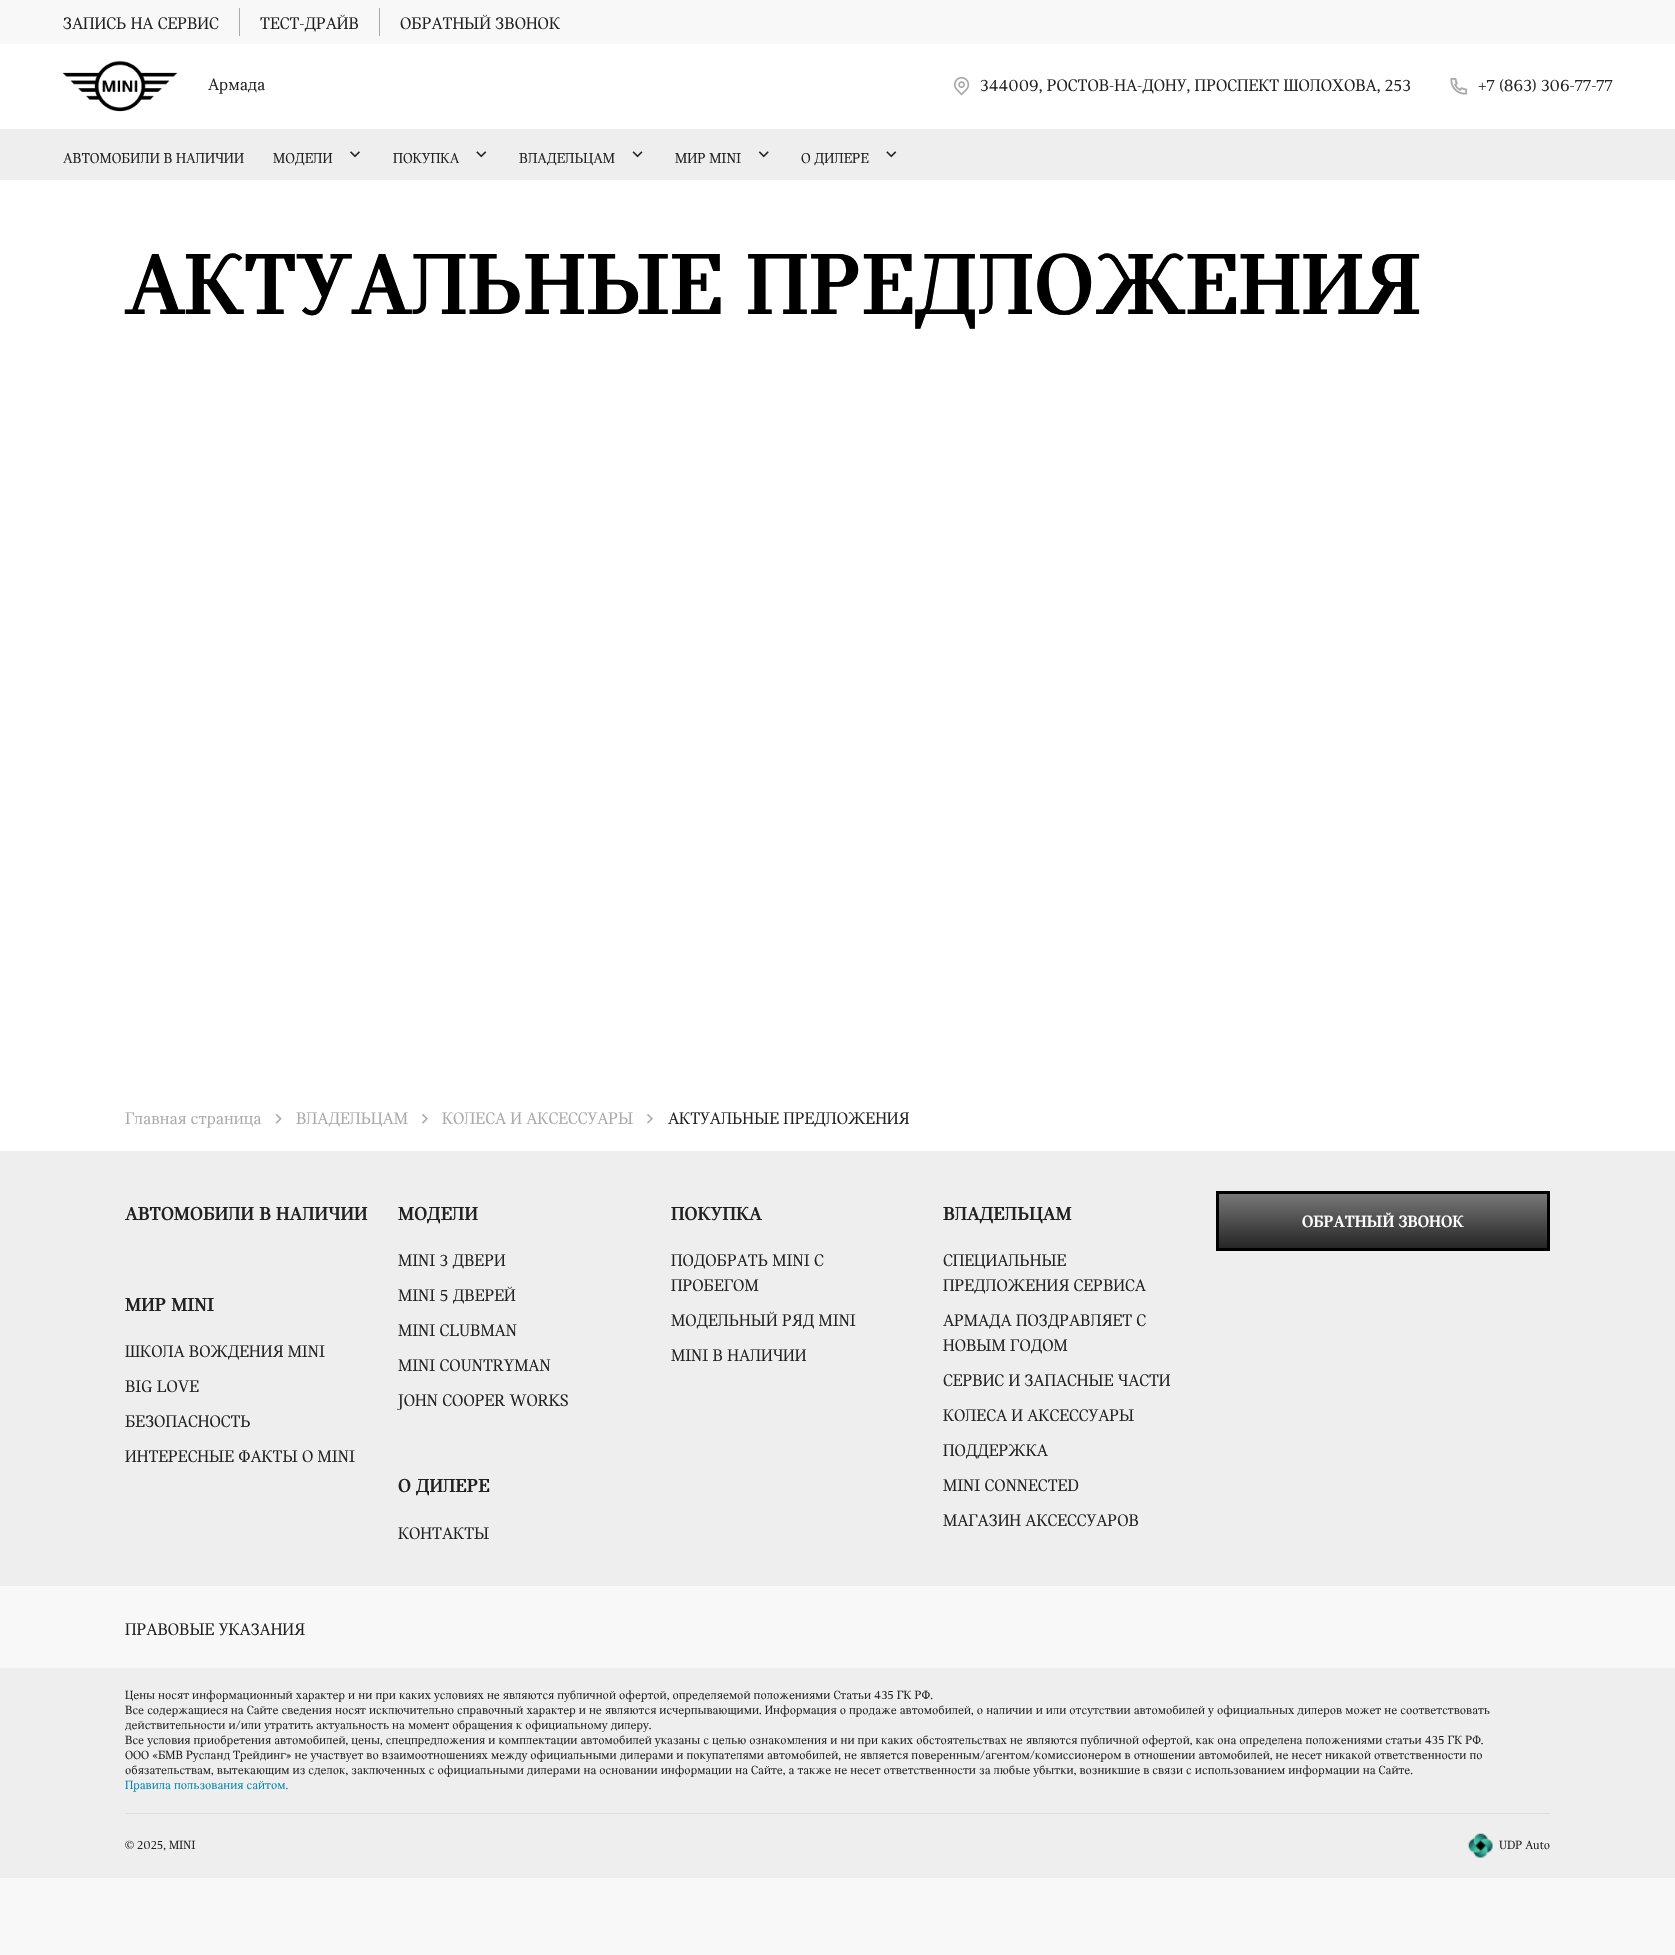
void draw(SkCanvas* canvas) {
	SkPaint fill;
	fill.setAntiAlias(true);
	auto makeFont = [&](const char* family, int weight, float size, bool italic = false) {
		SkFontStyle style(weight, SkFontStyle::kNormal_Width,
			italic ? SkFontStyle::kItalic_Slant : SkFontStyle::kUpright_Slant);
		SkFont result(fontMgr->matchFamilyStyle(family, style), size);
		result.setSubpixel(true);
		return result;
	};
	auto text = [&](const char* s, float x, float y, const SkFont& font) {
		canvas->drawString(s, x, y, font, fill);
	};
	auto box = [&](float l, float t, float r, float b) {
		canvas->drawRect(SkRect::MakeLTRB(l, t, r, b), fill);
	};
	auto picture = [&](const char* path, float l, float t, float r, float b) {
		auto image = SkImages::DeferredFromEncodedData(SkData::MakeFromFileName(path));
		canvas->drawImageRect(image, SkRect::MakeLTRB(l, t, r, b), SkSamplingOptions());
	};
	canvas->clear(0xFFFFFFFF);
	fill.setColor(0xFFF8F8F8);
	box(0, 0, 1675, 44);
	fill.setColor(0xFFAAAAAA);
	box(239, 8, 240, 36);
	box(379, 8, 380, 36);
	picture("image0.png", 62, 60, 178, 112);
	picture("image1.png", 954, 76, 970, 96);
	picture("image2.png", 1450, 77, 1468, 95);
	fill.setColor(0xFFEEEEEE);
	box(0, 129, 1675, 180);
	picture("image3.png", 350, 151, 360, 158);
	picture("image4.png", 476, 151, 487, 158);
	picture("image5.png", 632, 151, 643, 158);
	picture("image6.png", 758, 151, 769, 158);
	picture("image4.png", 886, 151, 897, 158);
	picture("image7.png", 275, 1113, 282, 1124);
	picture("image8.png", 422, 1114, 428, 1124);
	picture("image8.png", 647, 1114, 653, 1124);
	box(0, 1151, 1675, 1586);
	{
		const SkColor colors[] = {0xFF777777, 0xFF242424};
		const float stops[] = {0, 1};
		const SkPoint ends[] = {{1383, 1194}, {1383, 1249}};
		fill.setShader(SkGradientShader::MakeLinear(ends, colors, stops, 2, SkTileMode::kClamp));
		fill.setAlpha(255);
	}
	box(1219, 1194, 1547, 1248);
	fill.setStyle(SkPaint::kStroke_Style);
	fill.setStrokeWidth(3);
	fill.setShader(nullptr);
	fill.setColor(0xFF000000);
	canvas->drawRect(SkRect::MakeLTRB(1217.5f, 1192.5f, 1548.5f, 1249.5f), fill);
	fill.setStyle(SkPaint::kFill_Style);
	fill.setColor(0xFFF8F8F8);
	box(0, 1586, 1675, 1668);
	fill.setColor(0xFFEEEEEE);
	box(0, 1668, 1675, 1878);
	fill.setColor(0xFFDDDDDD);
	box(125, 1813, 1550, 1814);
	picture("image9.png", 1468, 1833, 1493, 1858);
	fill.setColor(0xFFF8F8F8);
	box(0, 1878, 1675, 1955);
	auto font1 = makeFont("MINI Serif", 400, 17.5f);
	fill.setColor(0xFF222222);
	text("ЗАПИСЬ НА СЕРВИС", 63, 29, font1);
	text("ТЕСТ-ДРАЙВ", 260, 29, font1);
	text("ОБРАТНЫЙ ЗВОНОК", 400, 29, font1);
	text("Армада", 208, 90, font1);
	text("344009, РОСТОВ-НА-ДОНУ, ПРОСПЕКТ ШОЛОХОВА, 253", 980, 91, font1);
	text("+7 (863) 306-77-77", 1478, 91, font1);
	auto font2 = makeFont("MINI Serif", 400, 15);
	text("АВТОМОБИЛИ В НАЛИЧИИ", 63, 163, font2);
	text("МОДЕЛИ", 273, 163, font2);
	text("ПОКУПКА", 393, 163, font2);
	text("ВЛАДЕЛЬЦАМ", 519, 163, font2);
	text("МИР MINI", 675, 163, font2);
	text("О ДИЛЕРЕ", 801, 163, font2);
	auto font3 = makeFont("MINI Serif", 900, 92.5f);
	fill.setColor(0xFF000000);
	text("АКТУАЛЬНЫЕ ПРЕДЛОЖЕНИЯ", 125, 314, font3);
	fill.setColor(0xFFAAAAAA);
	text("Главная страница", 125, 1124, font1);
	text("ВЛАДЕЛЬЦАМ", 296, 1124, font1);
	text("КОЛЕСА И АКСЕССУАРЫ", 442, 1124, font1);
	fill.setColor(0xFF222222);
	text("АКТУАЛЬНЫЕ ПРЕДЛОЖЕНИЯ", 668, 1124, font1);
	auto font4 = makeFont("MINI Serif", 900, 20);
	text("АВТОМОБИЛИ В НАЛИЧИИ", 125, 1220, font4);
	text("МИР MINI", 125, 1311, font4);
	text("ШКОЛА ВОЖДЕНИЯ MINI", 125, 1357, font1);
	text("BIG LOVE", 125, 1392, font1);
	text("БЕЗОПАСНОСТЬ", 125, 1427, font1);
	text("ИНТЕРЕСНЫЕ ФАКТЫ О MINI", 125, 1462, font1);
	text("МОДЕЛИ", 398, 1220, font4);
	text("MINI 3 ДВЕРИ", 398, 1266, font1);
	text("MINI 5 ДВЕРЕЙ", 398, 1301, font1);
	text("MINI CLUBMAN", 398, 1336, font1);
	text("MINI COUNTRYMAN", 398, 1371, font1);
	text("JOHN COOPER WORKS", 398, 1406, font1);
	text("О ДИЛЕРЕ", 398, 1492, font4);
	text("КОНТАКТЫ", 398, 1539, font1);
	text("ПОКУПКА", 671, 1220, font4);
	text("ПОДОБРАТЬ MINI С", 671, 1266, font1);
	text("ПРОБЕГОМ", 671, 1291, font1);
	text("МОДЕЛЬНЫЙ РЯД MINI", 671, 1326, font1);
	text("MINI В НАЛИЧИИ", 671, 1361, font1);
	text("ВЛАДЕЛЬЦАМ", 943, 1220, font4);
	text("СПЕЦИАЛЬНЫЕ", 943, 1266, font1);
	text("ПРЕДЛОЖЕНИЯ СЕРВИСА", 943, 1291, font1);
	text("АРМАДА ПОЗДРАВЛЯЕТ С", 943, 1326, font1);
	text("НОВЫМ ГОДОМ", 943, 1351, font1);
	text("СЕРВИС И ЗАПАСНЫЕ ЧАСТИ", 943, 1386, font1);
	text("КОЛЕСА И АКСЕССУАРЫ", 943, 1421, font1);
	text("ПОДДЕРЖКА", 943, 1456, font1);
	text("MINI CONNECTED", 943, 1491, font1);
	text("МАГАЗИН АКСЕССУАРОВ", 943, 1526, font1);
	auto font5 = makeFont("MINI Serif", 900, 17.5f);
	fill.setColor(0xFFFFFFFF);
	text("ОБРАТНЫЙ ЗВОНОК", 1302, 1227, font5);
	fill.setColor(0xFF222222);
	text("ПРАВОВЫЕ УКАЗАНИЯ", 125, 1635, font1);
	auto font6 = makeFont("MINI Serif", 400, 12.5f);
	text("Цены носят информационный характер и ни при каких условиях не являются публичной офертой, определяемой положениями Статьи 435 ГК РФ.", 125, 1699, font6);
	text("Все содержащиеся на Сайте сведения носят исключительно справочный характер и не являются исчерпывающими. Информация о продаже автомобилей, о наличии и или отсутствии автомобилей у официальных дилеров может не соответствовать", 125, 1714, font6);
	text("действительности и/или утратить актуальность на момент обращения к официальному дилеру.", 125, 1729, font6);
	text("Все условия приобретения автомобилей, цены, спецпредложения и комплектации автомобилей указаны с целью ознакомления и ни при каких обстоятельствах не являются публичной офертой, как она определена положениями статьи 435 ГК РФ.", 125, 1744, font6);
	text("ООО «БМВ Русланд Трейдинг» не участвует во взаимоотношениях между официальными дилерами и покупателями автомобилей, не является поверенным/агентом/комиссионером в отношении автомобилей, не несет никакой ответственности по", 125, 1759, font6);
	text("обязательствам, вытекающим из сделок, заключенных с официальными дилерами на основании информации на Сайте, а также не несет ответственности за любые убытки, возникшие в связи с использованием информации на Сайте.", 125, 1774, font6);
	fill.setColor(0xFF0085AC);
	text("Правила пользования сайтом.", 125, 1789, font6);
	fill.setColor(0xFF222222);
	text("© 2025, MINI", 125, 1849, font6);
	text("UDP Auto", 1499, 1849, font6);
}
